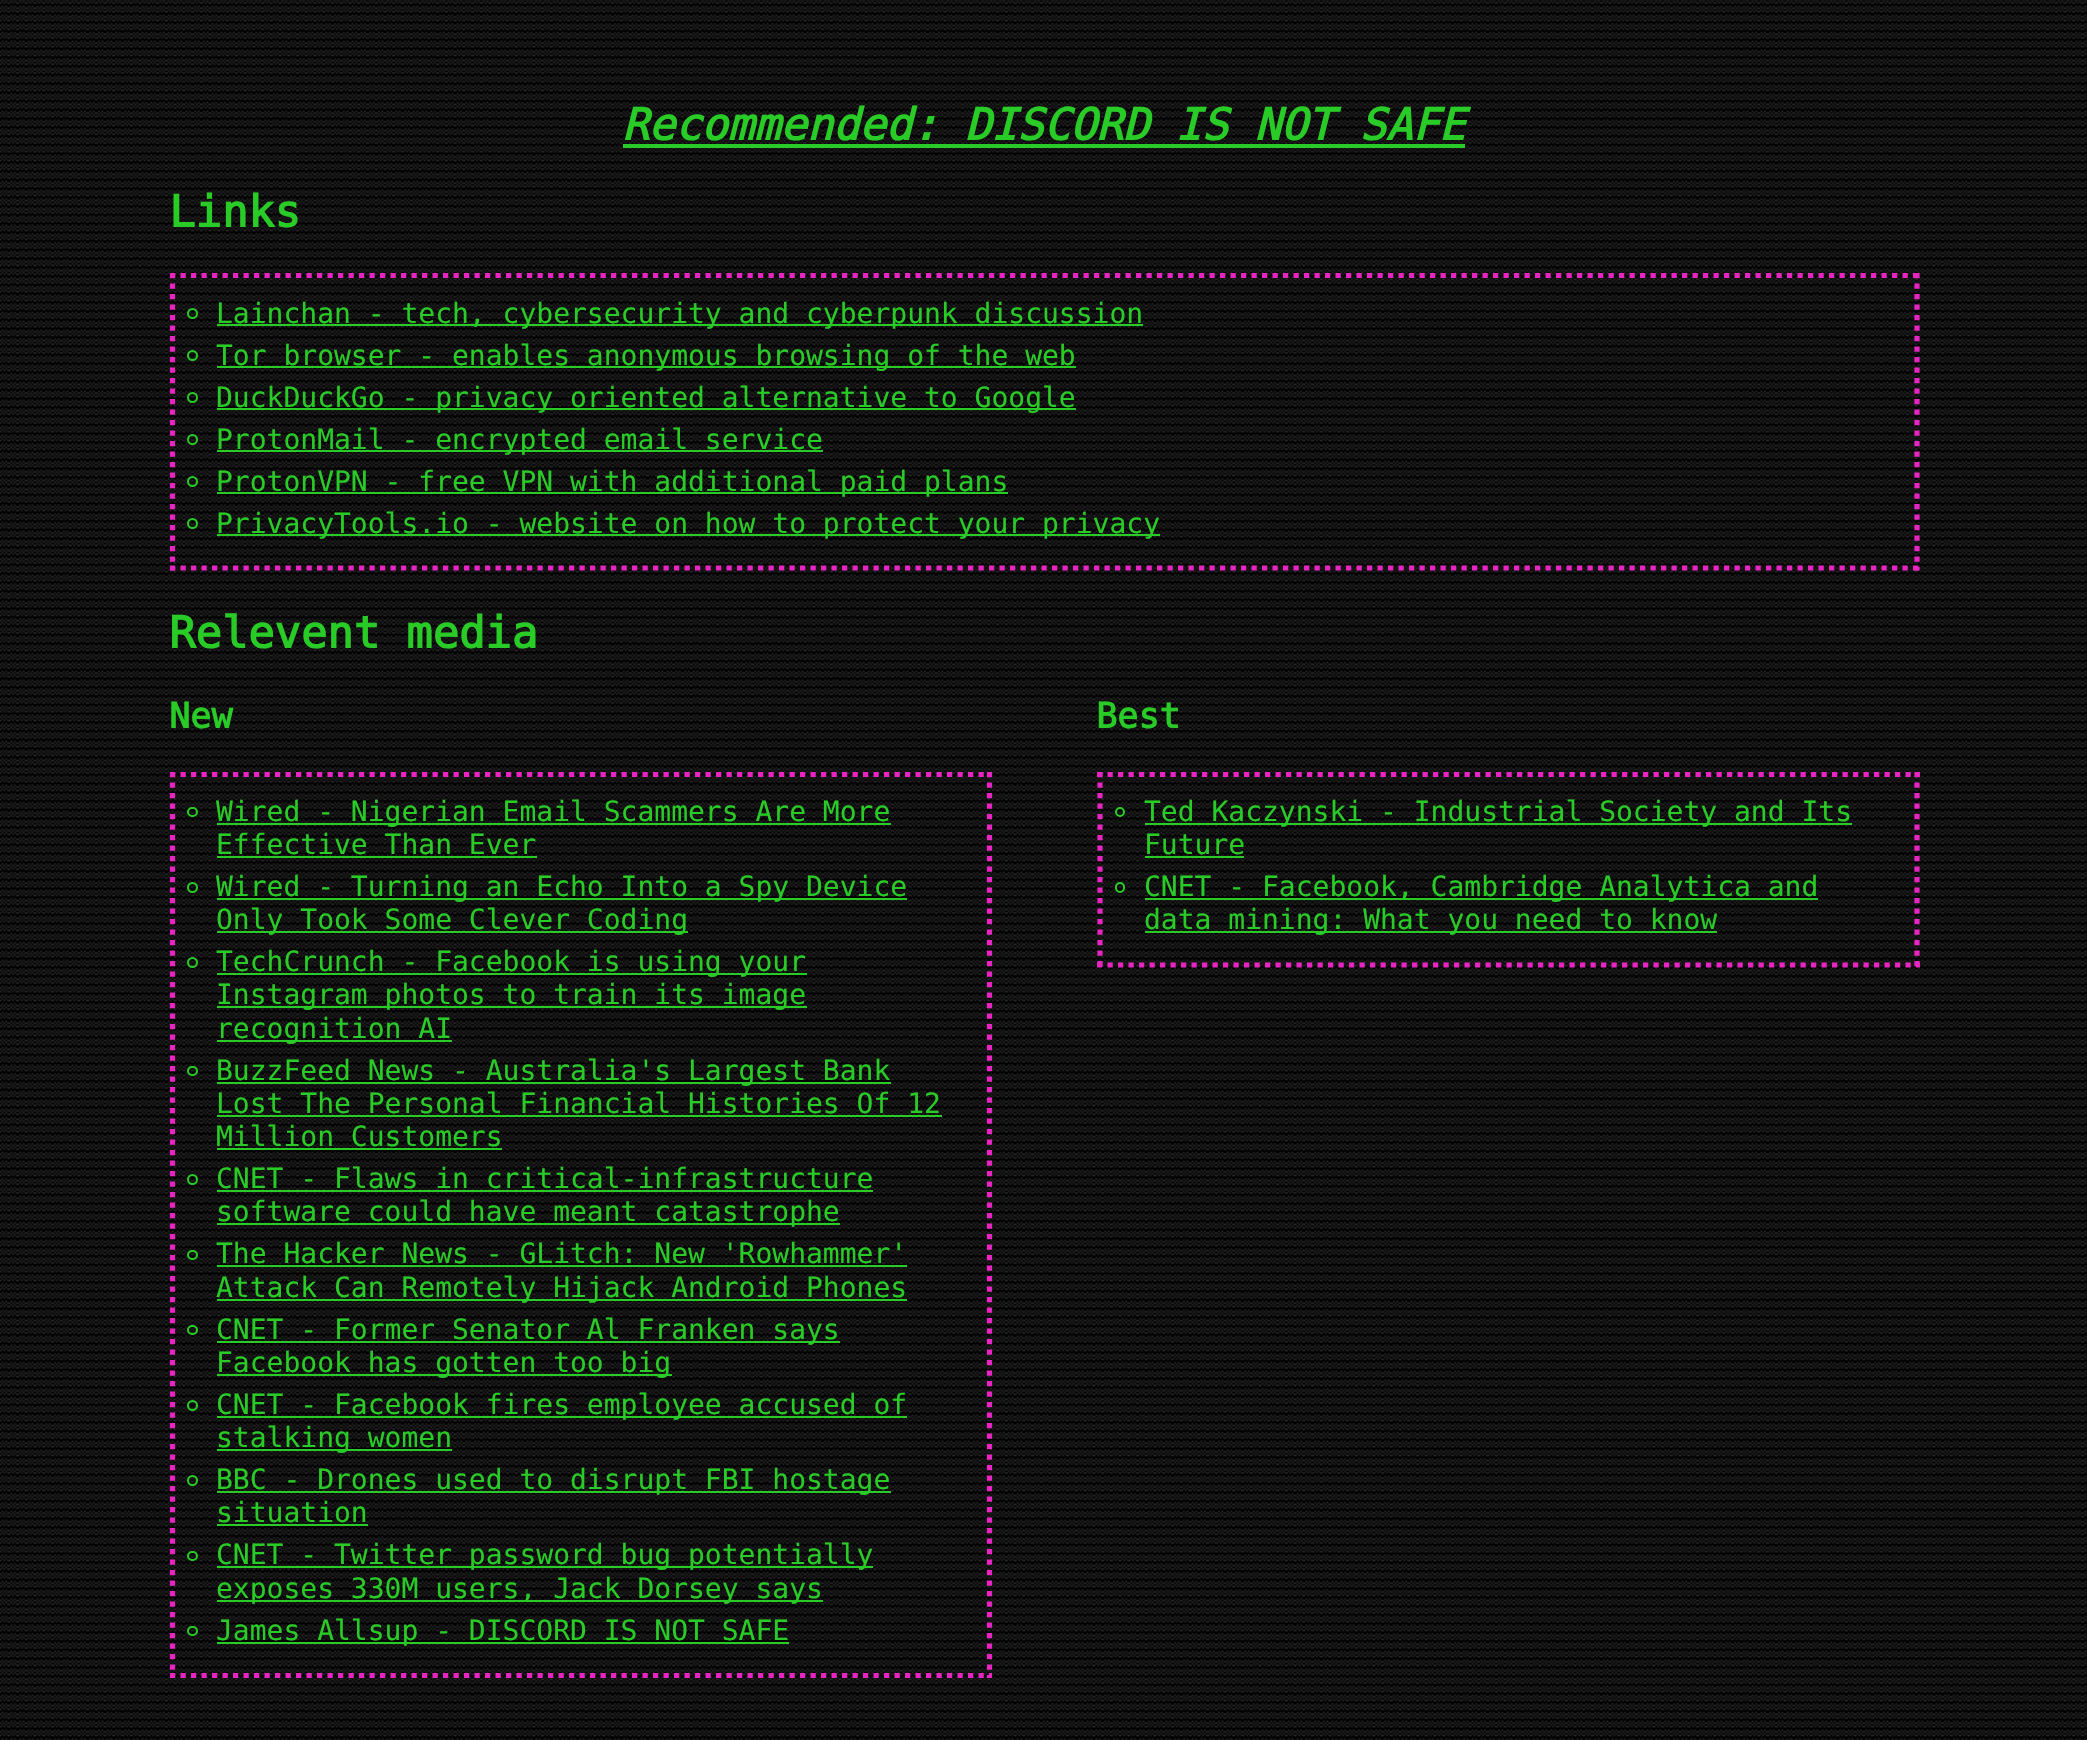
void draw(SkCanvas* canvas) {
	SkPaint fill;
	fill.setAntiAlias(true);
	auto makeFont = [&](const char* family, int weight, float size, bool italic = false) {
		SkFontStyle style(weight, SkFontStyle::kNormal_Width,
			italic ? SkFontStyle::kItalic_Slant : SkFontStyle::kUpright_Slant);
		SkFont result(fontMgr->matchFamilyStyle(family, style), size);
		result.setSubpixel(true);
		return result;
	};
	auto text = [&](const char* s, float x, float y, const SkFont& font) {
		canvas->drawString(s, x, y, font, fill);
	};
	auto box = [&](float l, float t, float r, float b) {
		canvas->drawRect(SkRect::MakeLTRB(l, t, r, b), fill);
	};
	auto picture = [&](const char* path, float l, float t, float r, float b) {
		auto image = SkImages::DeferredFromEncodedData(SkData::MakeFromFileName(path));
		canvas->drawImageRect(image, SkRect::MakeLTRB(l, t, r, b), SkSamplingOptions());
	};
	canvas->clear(0xFFFFFFFF);
	picture("image0.png", 0, 0, 2087, 1740);
	fill.setColor(0xFF29CC26);
	box(623, 144, 1465, 148);
	fill.setStyle(SkPaint::kStroke_Style);
	fill.setStrokeWidth(5.2f);
	fill.setColor(0xFFEA24C3);
	fill.setPathEffect(SkDashPathEffect::Make({{5.25f, 5.25f}}, 0));
	canvas->drawPath(SkPathBuilder().moveTo(170, 275.5f).lineTo(1920, 275.5f).detach(), fill);
	fill.setPathEffect(nullptr);
	fill.setPathEffect(SkDashPathEffect::Make({{5.25f, 5.25f}}, 0));
	canvas->drawPath(SkPathBuilder().moveTo(1917, 273).lineTo(1917, 570.5f).detach(), fill);
	fill.setPathEffect(nullptr);
	fill.setPathEffect(SkDashPathEffect::Make({{5.25f, 5.25f}}, 0));
	canvas->drawPath(SkPathBuilder().moveTo(170, 568).lineTo(1920, 568).detach(), fill);
	fill.setPathEffect(nullptr);
	fill.setPathEffect(SkDashPathEffect::Make({{5.25f, 5.25f}}, 0));
	canvas->drawPath(SkPathBuilder().moveTo(172.5f, 273).lineTo(172.5f, 570.5f).detach(), fill);
	fill.setPathEffect(nullptr);
	fill.setStrokeWidth(2);
	fill.setColor(0xFF29CC26);
	canvas->drawCircle(192.5f, 313.5f, 4.5f, fill);
	fill.setStyle(SkPaint::kFill_Style);
	box(217, 324, 1143, 326);
	fill.setStyle(SkPaint::kStroke_Style);
	canvas->drawCircle(192.5f, 355.5f, 4.5f, fill);
	fill.setStyle(SkPaint::kFill_Style);
	box(217, 366, 1076, 368);
	fill.setStyle(SkPaint::kStroke_Style);
	canvas->drawCircle(192.5f, 397.5f, 4.5f, fill);
	fill.setStyle(SkPaint::kFill_Style);
	box(217, 408, 1076, 410);
	fill.setStyle(SkPaint::kStroke_Style);
	canvas->drawCircle(192.5f, 439.5f, 4.5f, fill);
	fill.setStyle(SkPaint::kFill_Style);
	box(217, 450, 823, 452);
	fill.setStyle(SkPaint::kStroke_Style);
	canvas->drawCircle(192.5f, 481.5f, 4.5f, fill);
	fill.setStyle(SkPaint::kFill_Style);
	box(217, 492, 1008, 494);
	fill.setStyle(SkPaint::kStroke_Style);
	canvas->drawCircle(192.5f, 523.5f, 4.5f, fill);
	fill.setStyle(SkPaint::kFill_Style);
	box(217, 534, 1160, 536);
	fill.setStyle(SkPaint::kStroke_Style);
	fill.setStrokeWidth(5.2f);
	fill.setColor(0xFFEA24C3);
	fill.setPathEffect(SkDashPathEffect::Make({{5.25f, 5.25f}}, 0));
	canvas->drawPath(SkPathBuilder().moveTo(170, 774.5f).lineTo(992, 774.5f).detach(), fill);
	fill.setPathEffect(nullptr);
	fill.setPathEffect(SkDashPathEffect::Make({{5.25f, 5.25f}}, 0));
	canvas->drawPath(SkPathBuilder().moveTo(989.5f, 772).lineTo(989.5f, 1678).detach(), fill);
	fill.setPathEffect(nullptr);
	fill.setPathEffect(SkDashPathEffect::Make({{5.25f, 5.25f}}, 0));
	canvas->drawPath(SkPathBuilder().moveTo(170, 1675.5f).lineTo(992, 1675.5f).detach(), fill);
	fill.setPathEffect(nullptr);
	fill.setPathEffect(SkDashPathEffect::Make({{5.25f, 5.25f}}, 0));
	canvas->drawPath(SkPathBuilder().moveTo(172.5f, 772).lineTo(172.5f, 1678).detach(), fill);
	fill.setPathEffect(nullptr);
	fill.setStrokeWidth(2);
	fill.setColor(0xFF29CC26);
	canvas->drawRoundRect(SkRect::MakeLTRB(188, 808, 197, 816), 4, 4, fill);
	fill.setStyle(SkPaint::kFill_Style);
	box(217, 823, 891, 825);
	box(217, 856, 537, 858);
	fill.setStyle(SkPaint::kStroke_Style);
	canvas->drawCircle(192.5f, 887.5f, 4.5f, fill);
	fill.setStyle(SkPaint::kFill_Style);
	box(217, 898, 907, 900);
	box(217, 931, 688, 933);
	fill.setStyle(SkPaint::kStroke_Style);
	canvas->drawCircle(192.5f, 962.5f, 4.5f, fill);
	fill.setStyle(SkPaint::kFill_Style);
	box(217, 973, 807, 975);
	box(217, 1006, 807, 1008);
	box(217, 1040, 452, 1042);
	fill.setStyle(SkPaint::kStroke_Style);
	canvas->drawRoundRect(SkRect::MakeLTRB(188, 1067, 197, 1075), 4, 4, fill);
	fill.setStyle(SkPaint::kFill_Style);
	box(217, 1082, 891, 1084);
	box(217, 1115, 942, 1117);
	box(217, 1148, 502, 1150);
	fill.setStyle(SkPaint::kStroke_Style);
	canvas->drawCircle(192.5f, 1179.5f, 4.5f, fill);
	fill.setStyle(SkPaint::kFill_Style);
	box(217, 1190, 873, 1192);
	box(217, 1223, 840, 1225);
	fill.setStyle(SkPaint::kStroke_Style);
	canvas->drawRoundRect(SkRect::MakeLTRB(188, 1251, 197, 1259), 4, 4, fill);
	fill.setStyle(SkPaint::kFill_Style);
	box(217, 1265, 907, 1267);
	box(217, 1299, 907, 1301);
	fill.setStyle(SkPaint::kStroke_Style);
	canvas->drawRoundRect(SkRect::MakeLTRB(188, 1326, 197, 1334), 4, 4, fill);
	fill.setStyle(SkPaint::kFill_Style);
	box(217, 1341, 840, 1343);
	box(217, 1374, 672, 1376);
	fill.setStyle(SkPaint::kStroke_Style);
	canvas->drawCircle(192.5f, 1405.5f, 4.5f, fill);
	fill.setStyle(SkPaint::kFill_Style);
	box(217, 1416, 907, 1418);
	box(217, 1449, 452, 1451);
	fill.setStyle(SkPaint::kStroke_Style);
	canvas->drawCircle(192.5f, 1480.5f, 4.5f, fill);
	fill.setStyle(SkPaint::kFill_Style);
	box(217, 1491, 891, 1493);
	box(217, 1524, 368, 1526);
	fill.setStyle(SkPaint::kStroke_Style);
	canvas->drawRoundRect(SkRect::MakeLTRB(188, 1552, 197, 1560), 4, 4, fill);
	fill.setStyle(SkPaint::kFill_Style);
	box(217, 1566, 873, 1568);
	box(217, 1600, 823, 1602);
	fill.setStyle(SkPaint::kStroke_Style);
	canvas->drawRoundRect(SkRect::MakeLTRB(188, 1627, 197, 1635), 4, 4, fill);
	fill.setStyle(SkPaint::kFill_Style);
	box(217, 1642, 789, 1644);
	fill.setStyle(SkPaint::kStroke_Style);
	fill.setStrokeWidth(5.2f);
	fill.setColor(0xFFEA24C3);
	fill.setPathEffect(SkDashPathEffect::Make({{5.25f, 5.25f}}, 0));
	canvas->drawPath(SkPathBuilder().moveTo(1097, 774.5f).lineTo(1920, 774.5f).detach(), fill);
	fill.setPathEffect(nullptr);
	fill.setPathEffect(SkDashPathEffect::Make({{5.25f, 5.25f}}, 0));
	canvas->drawPath(SkPathBuilder().moveTo(1917, 772).lineTo(1917, 968).detach(), fill);
	fill.setPathEffect(nullptr);
	fill.setPathEffect(SkDashPathEffect::Make({{5.25f, 5.25f}}, 0));
	canvas->drawPath(SkPathBuilder().moveTo(1097, 965).lineTo(1920, 965).detach(), fill);
	fill.setPathEffect(nullptr);
	fill.setPathEffect(SkDashPathEffect::Make({{5.25f, 5.25f}}, 0));
	canvas->drawPath(SkPathBuilder().moveTo(1100, 772).lineTo(1100, 968).detach(), fill);
	fill.setPathEffect(nullptr);
	fill.setStrokeWidth(2);
	fill.setColor(0xFF29CC26);
	canvas->drawCircle(1120, 812, 4, fill);
	fill.setStyle(SkPaint::kFill_Style);
	box(1145, 823, 1852, 825);
	box(1145, 856, 1244, 858);
	fill.setStyle(SkPaint::kStroke_Style);
	canvas->drawRoundRect(SkRect::MakeLTRB(1116, 883, 1124, 892), 4, 4, fill);
	fill.setStyle(SkPaint::kFill_Style);
	box(1145, 898, 1818, 900);
	box(1145, 931, 1717, 933);
	auto font1 = makeFont("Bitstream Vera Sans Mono", 700, 43.75f, true);
	text("Recommended: DISCORD IS NOT SAFE", 622, 140, font1);
	auto font2 = makeFont("Bitstream Vera Sans Mono", 700, 43.75f);
	text("Links", 169, 227, font2);
	auto font3 = makeFont("Bitstream Vera Sans Mono", 400, 28);
	text("Lainchan - tech, cybersecurity and cyberpunk discussion", 216, 323, font3);
	text("Tor browser - enables anonymous browsing of the web", 216, 365, font3);
	text("DuckDuckGo - privacy oriented alternative to Google", 216, 407, font3);
	text("ProtonMail - encrypted email service", 216, 449, font3);
	text("ProtonVPN - free VPN with additional paid plans", 216, 491, font3);
	text("PrivacyTools.io - website on how to protect your privacy", 216, 533, font3);
	text("Relevent media", 169, 648, font2);
	auto font4 = makeFont("Bitstream Vera Sans Mono", 700, 35);
	text("New", 169, 728, font4);
	text("Wired - Nigerian Email Scammers Are More", 216, 821, font3);
	text("Effective Than Ever", 216, 854, font3);
	text("Wired - Turning an Echo Into a Spy Device", 216, 896, font3);
	text("Only Took Some Clever Coding", 216, 929, font3);
	text("TechCrunch - Facebook is using your", 216, 971, font3);
	text("Instagram photos to train its image", 216, 1004, font3);
	text("recognition AI", 216, 1038, font3);
	text("BuzzFeed News - Australia's Largest Bank", 216, 1080, font3);
	text("Lost The Personal Financial Histories Of 12", 216, 1113, font3);
	text("Million Customers", 216, 1146, font3);
	text("CNET - Flaws in critical-infrastructure", 216, 1188, font3);
	text("software could have meant catastrophe", 216, 1221, font3);
	text("The Hacker News - GLitch: New 'Rowhammer'", 216, 1263, font3);
	text("Attack Can Remotely Hijack Android Phones", 216, 1297, font3);
	text("CNET - Former Senator Al Franken says", 216, 1339, font3);
	text("Facebook has gotten too big", 216, 1372, font3);
	text("CNET - Facebook fires employee accused of", 216, 1414, font3);
	text("stalking women", 216, 1447, font3);
	text("BBC - Drones used to disrupt FBI hostage", 216, 1489, font3);
	text("situation", 216, 1522, font3);
	text("CNET - Twitter password bug potentially", 216, 1564, font3);
	text("exposes 330M users, Jack Dorsey says", 216, 1598, font3);
	text("James Allsup - DISCORD IS NOT SAFE", 216, 1640, font3);
	text("Best", 1096, 728, font4);
	text("Ted Kaczynski - Industrial Society and Its", 1144, 821, font3);
	text("Future", 1144, 854, font3);
	text("CNET - Facebook, Cambridge Analytica and", 1144, 896, font3);
	text("data mining: What you need to know", 1144, 929, font3);
}
